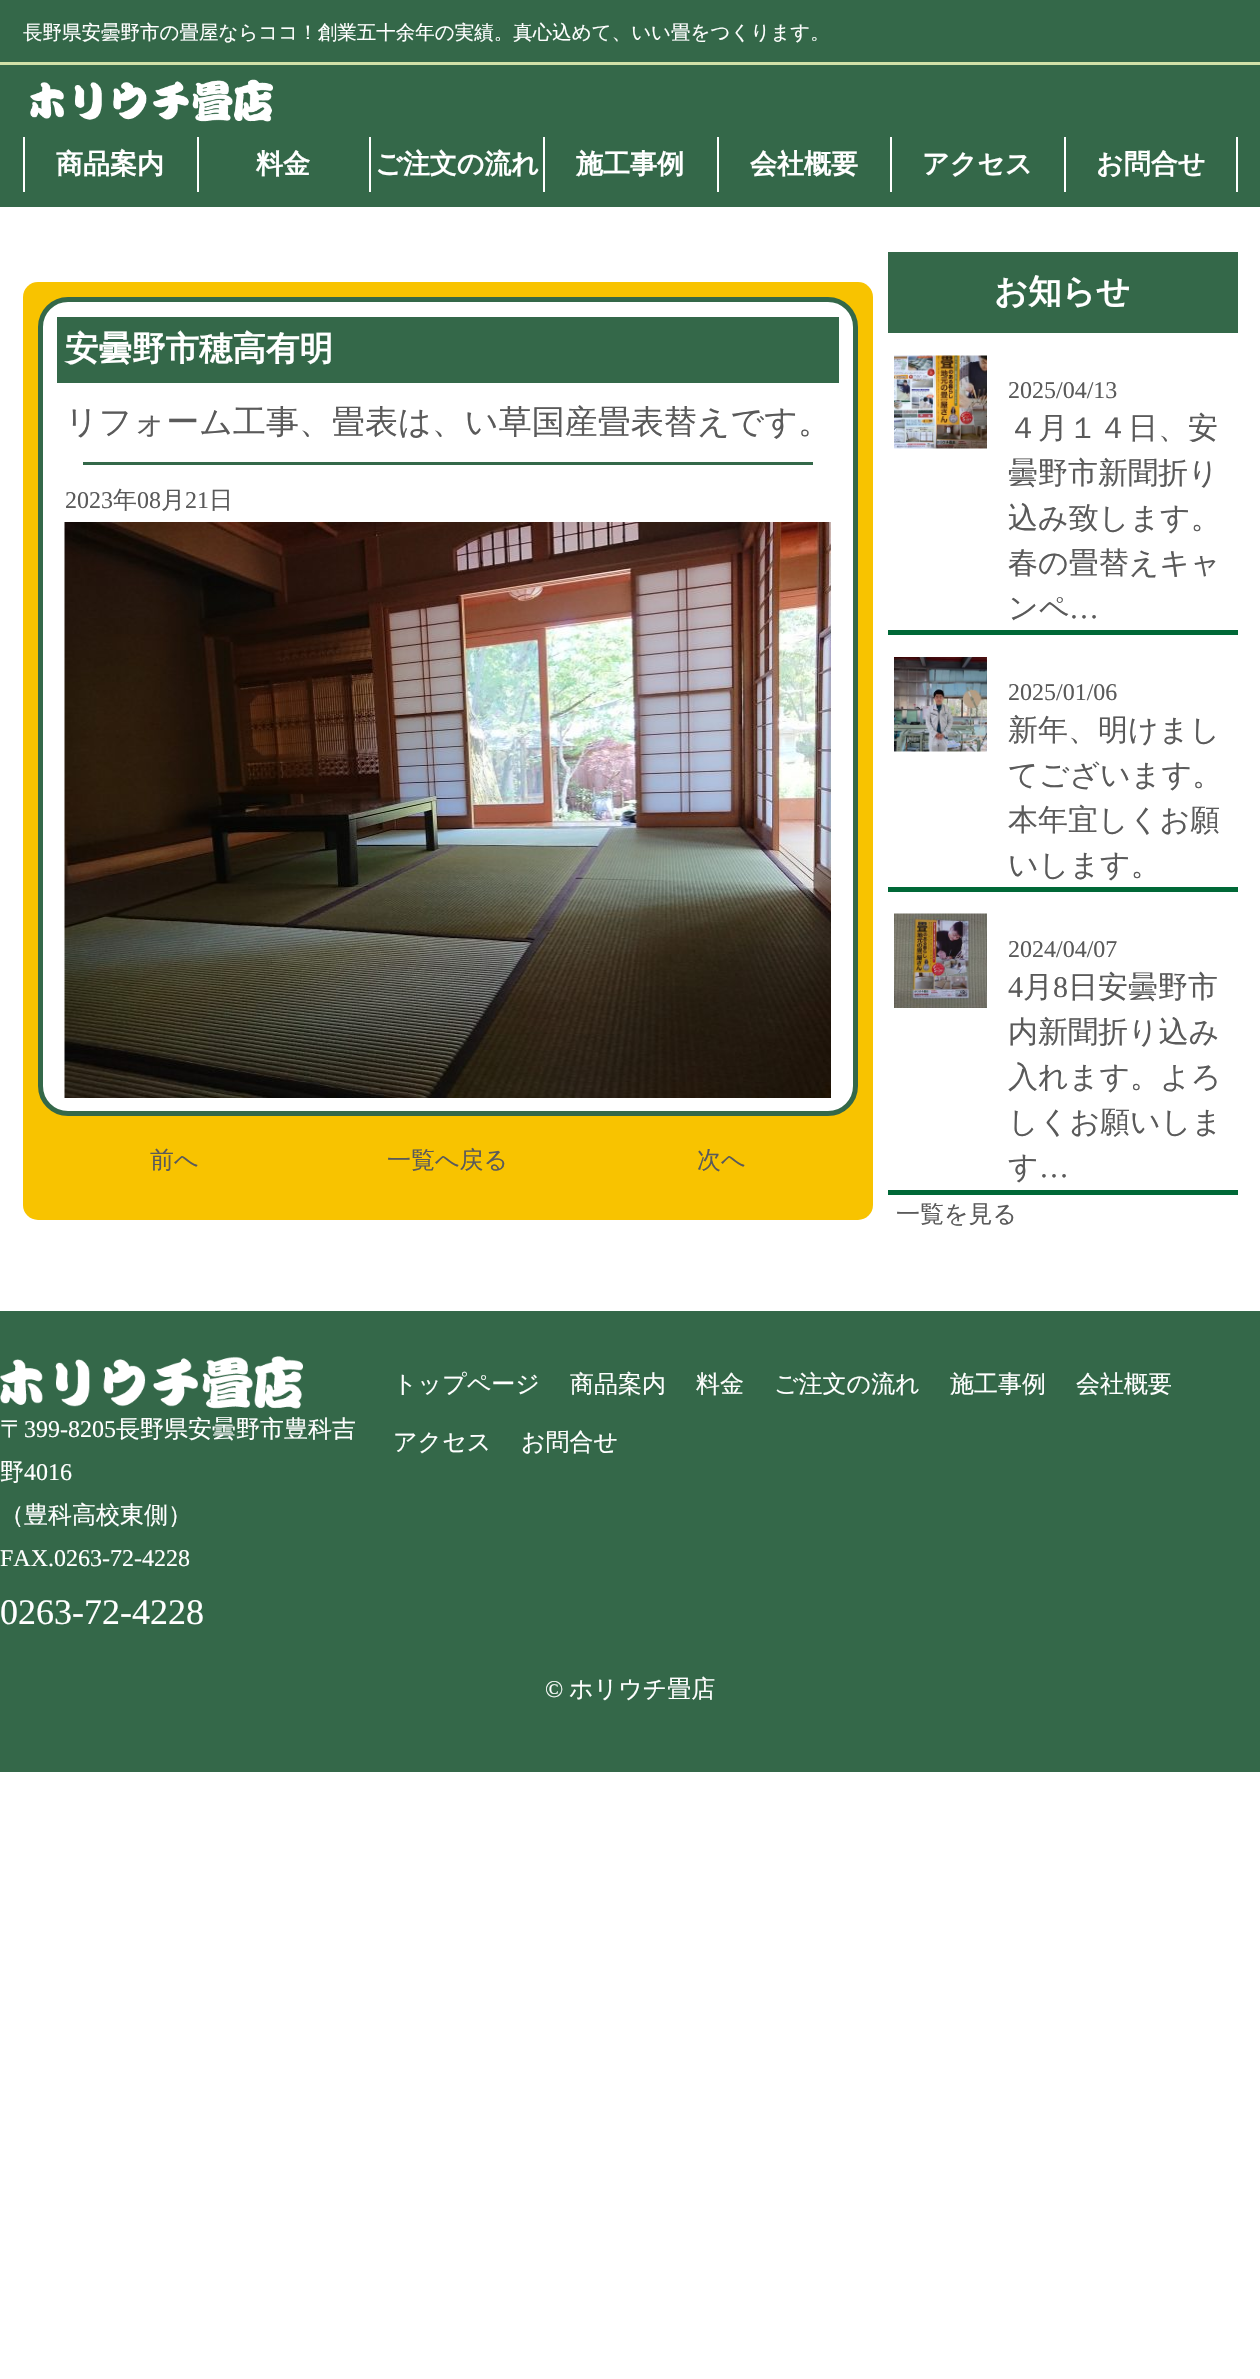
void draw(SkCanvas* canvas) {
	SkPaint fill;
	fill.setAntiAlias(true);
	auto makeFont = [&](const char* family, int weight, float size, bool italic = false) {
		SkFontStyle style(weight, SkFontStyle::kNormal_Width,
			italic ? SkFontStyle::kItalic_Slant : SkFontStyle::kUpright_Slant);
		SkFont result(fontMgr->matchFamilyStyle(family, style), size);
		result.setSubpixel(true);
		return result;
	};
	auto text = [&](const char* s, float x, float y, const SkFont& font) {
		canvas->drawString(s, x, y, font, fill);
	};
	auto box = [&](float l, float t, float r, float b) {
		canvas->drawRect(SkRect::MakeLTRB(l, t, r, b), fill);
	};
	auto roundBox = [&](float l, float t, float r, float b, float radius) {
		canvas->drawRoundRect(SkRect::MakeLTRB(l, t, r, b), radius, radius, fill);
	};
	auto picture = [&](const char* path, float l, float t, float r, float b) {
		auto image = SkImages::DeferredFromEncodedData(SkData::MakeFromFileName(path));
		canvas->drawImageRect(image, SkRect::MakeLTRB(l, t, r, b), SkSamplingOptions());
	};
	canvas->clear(0xFFFFFFFF);
	fill.setColor(0xFF346849);
	box(0, 0, 1260, 207);
	fill.setColor(0xFFD1E1A9);
	box(0, 62, 1260, 65);
	picture("image0.png", 30, 79, 273, 122);
	fill.setColor(0xFFFFFFFF);
	box(23, 137, 25, 192);
	box(197, 137, 199, 192);
	box(369, 137, 371, 192);
	box(543, 137, 545, 192);
	box(717, 137, 719, 192);
	box(890, 137, 892, 192);
	box(1236, 137, 1238, 192);
	box(1064, 137, 1066, 192);
	fill.setColor(0xFFF8C300);
	roundBox(23, 282, 873, 1220, 15);
	fill.setColor(0xFFFFFFFF);
	canvas->drawRoundRect(SkRect::MakeLTRB(40.5f, 299.5f, 855.5f, 1113.5f), 27.5f, 27.5f, fill);
	fill.setStyle(SkPaint::kStroke_Style);
	fill.setStrokeWidth(5);
	fill.setColor(0xFF346849);
	canvas->drawRoundRect(SkRect::MakeLTRB(40.5f, 299.5f, 855.5f, 1113.5f), 27.5f, 27.5f, fill);
	fill.setStyle(SkPaint::kFill_Style);
	box(57, 317, 839, 383);
	box(83, 462, 813, 465);
	picture("image1.png", 64, 522, 831, 1098);
	box(888, 252, 1238, 333);
	fill.setColor(0xFF006837);
	box(888, 630, 1238, 635);
	picture("image2.png", 894, 355, 987, 449);
	box(888, 887, 1238, 892);
	picture("image3.png", 894, 657, 987, 752);
	box(888, 1190, 1238, 1195);
	picture("image4.png", 894, 913, 987, 1008);
	fill.setColor(0xFF346849);
	box(0, 1311, 1260, 1772);
	picture("image5.png", 0, 1356, 303, 1409);
	auto font1 = makeFont("WenQuanYi Zen Hei", 500, 19.5f);
	fill.setColor(0xFFFFFFFF);
	text("長野県安曇野市の畳屋ならココ！創業五十余年の実績。真心込めて、いい畳をつくります。", 23, 39, font1);
	auto font2 = makeFont("WenQuanYi Zen Hei", 700, 27);
	text("商品案内", 56, 173, font2);
	text("料金", 256, 173, font2);
	text("ご注文の流れ", 375, 173, font2);
	text("施工事例", 576, 173, font2);
	text("会社概要", 750, 173, font2);
	text("アクセス", 922, 173, font2);
	text("お問合せ", 1096, 173, font2);
	auto font3 = makeFont("WenQuanYi Zen Hei", 700, 33.5f);
	text("安曇野市穂高有明", 65, 360, font3);
	auto font4 = makeFont("WenQuanYi Zen Hei", 500, 33);
	fill.setColor(0xFF5A5A5A);
	text("リフォーム工事、畳表は、い草国産畳表替えです。", 65, 433, font4);
	auto font5 = makeFont("Liberation Serif", 400, 24);
	text("2023", 65, 508, font5);
	auto font6 = makeFont("WenQuanYi Zen Hei", 500, 24);
	text("年", 113, 508, font6);
	text("08", 137, 508, font5);
	text("月", 161, 508, font6);
	text("21", 185, 508, font5);
	text("日", 209, 508, font6);
	text("前へ", 150, 1168, font6);
	text("一覧へ戻る", 387, 1168, font6);
	text("次へ", 697, 1168, font6);
	fill.setColor(0xFFFFFFFF);
	text("お知らせ", 994, 303, font3);
	fill.setColor(0xFF5A5A5A);
	text("2025/04/13", 1008, 398, font5);
	auto font7 = makeFont("WenQuanYi Zen Hei", 500, 30);
	text("４月１４日、安", 1008, 438, font7);
	text("曇野市新聞折り", 1008, 483, font7);
	text("込み致します。", 1008, 528, font7);
	text("春の畳替えキャ", 1008, 573, font7);
	text("ンペ", 1008, 618, font7);
	auto font8 = makeFont("Liberation Serif", 400, 30);
	text("…", 1069, 618, font8);
	text("2025/01/06", 1008, 700, font5);
	text("新年、明けまし", 1008, 740, font7);
	text("てございます。", 1008, 785, font7);
	text("本年宜しくお願", 1008, 830, font7);
	text("いします。", 1008, 875, font7);
	text("2024/04/07", 1008, 957, font5);
	text("4", 1008, 997, font8);
	text("月", 1023, 997, font7);
	text("8", 1053, 997, font8);
	text("日安曇野市", 1068, 997, font7);
	text("内新聞折り込み", 1008, 1042, font7);
	text("入れます。よろ", 1008, 1087, font7);
	text("しくお願いしま", 1008, 1132, font7);
	text("す", 1008, 1177, font7);
	text("…", 1039, 1177, font8);
	text("一覧を見る", 896, 1222, font6);
	fill.setColor(0xFFFFFFFF);
	text("〒", 0, 1437, font6);
	text("399-8205", 24, 1437, font5);
	text("長野県安曇野市豊科吉", 116, 1437, font6);
	text("野", 0, 1480, font6);
	text("4016", 24, 1480, font5);
	text("（豊科高校東側）", 0, 1523, font6);
	text("FAX.0263-72-4228", 0, 1566, font5);
	auto font9 = makeFont("Liberation Serif", 400, 36);
	text("0263-72-4228", 0, 1624, font9);
	text("トップページ", 393, 1392, font6);
	text("商品案内", 570, 1392, font6);
	text("料金", 696, 1392, font6);
	text("ご注文の流れ", 774, 1392, font6);
	text("施工事例", 950, 1392, font6);
	text("会社概要", 1076, 1392, font6);
	text("アクセス", 393, 1450, font6);
	text("お問合せ", 521, 1450, font6);
	text("©", 545, 1697, font5);
	text("ホリウチ畳店", 569, 1697, font6);
}
